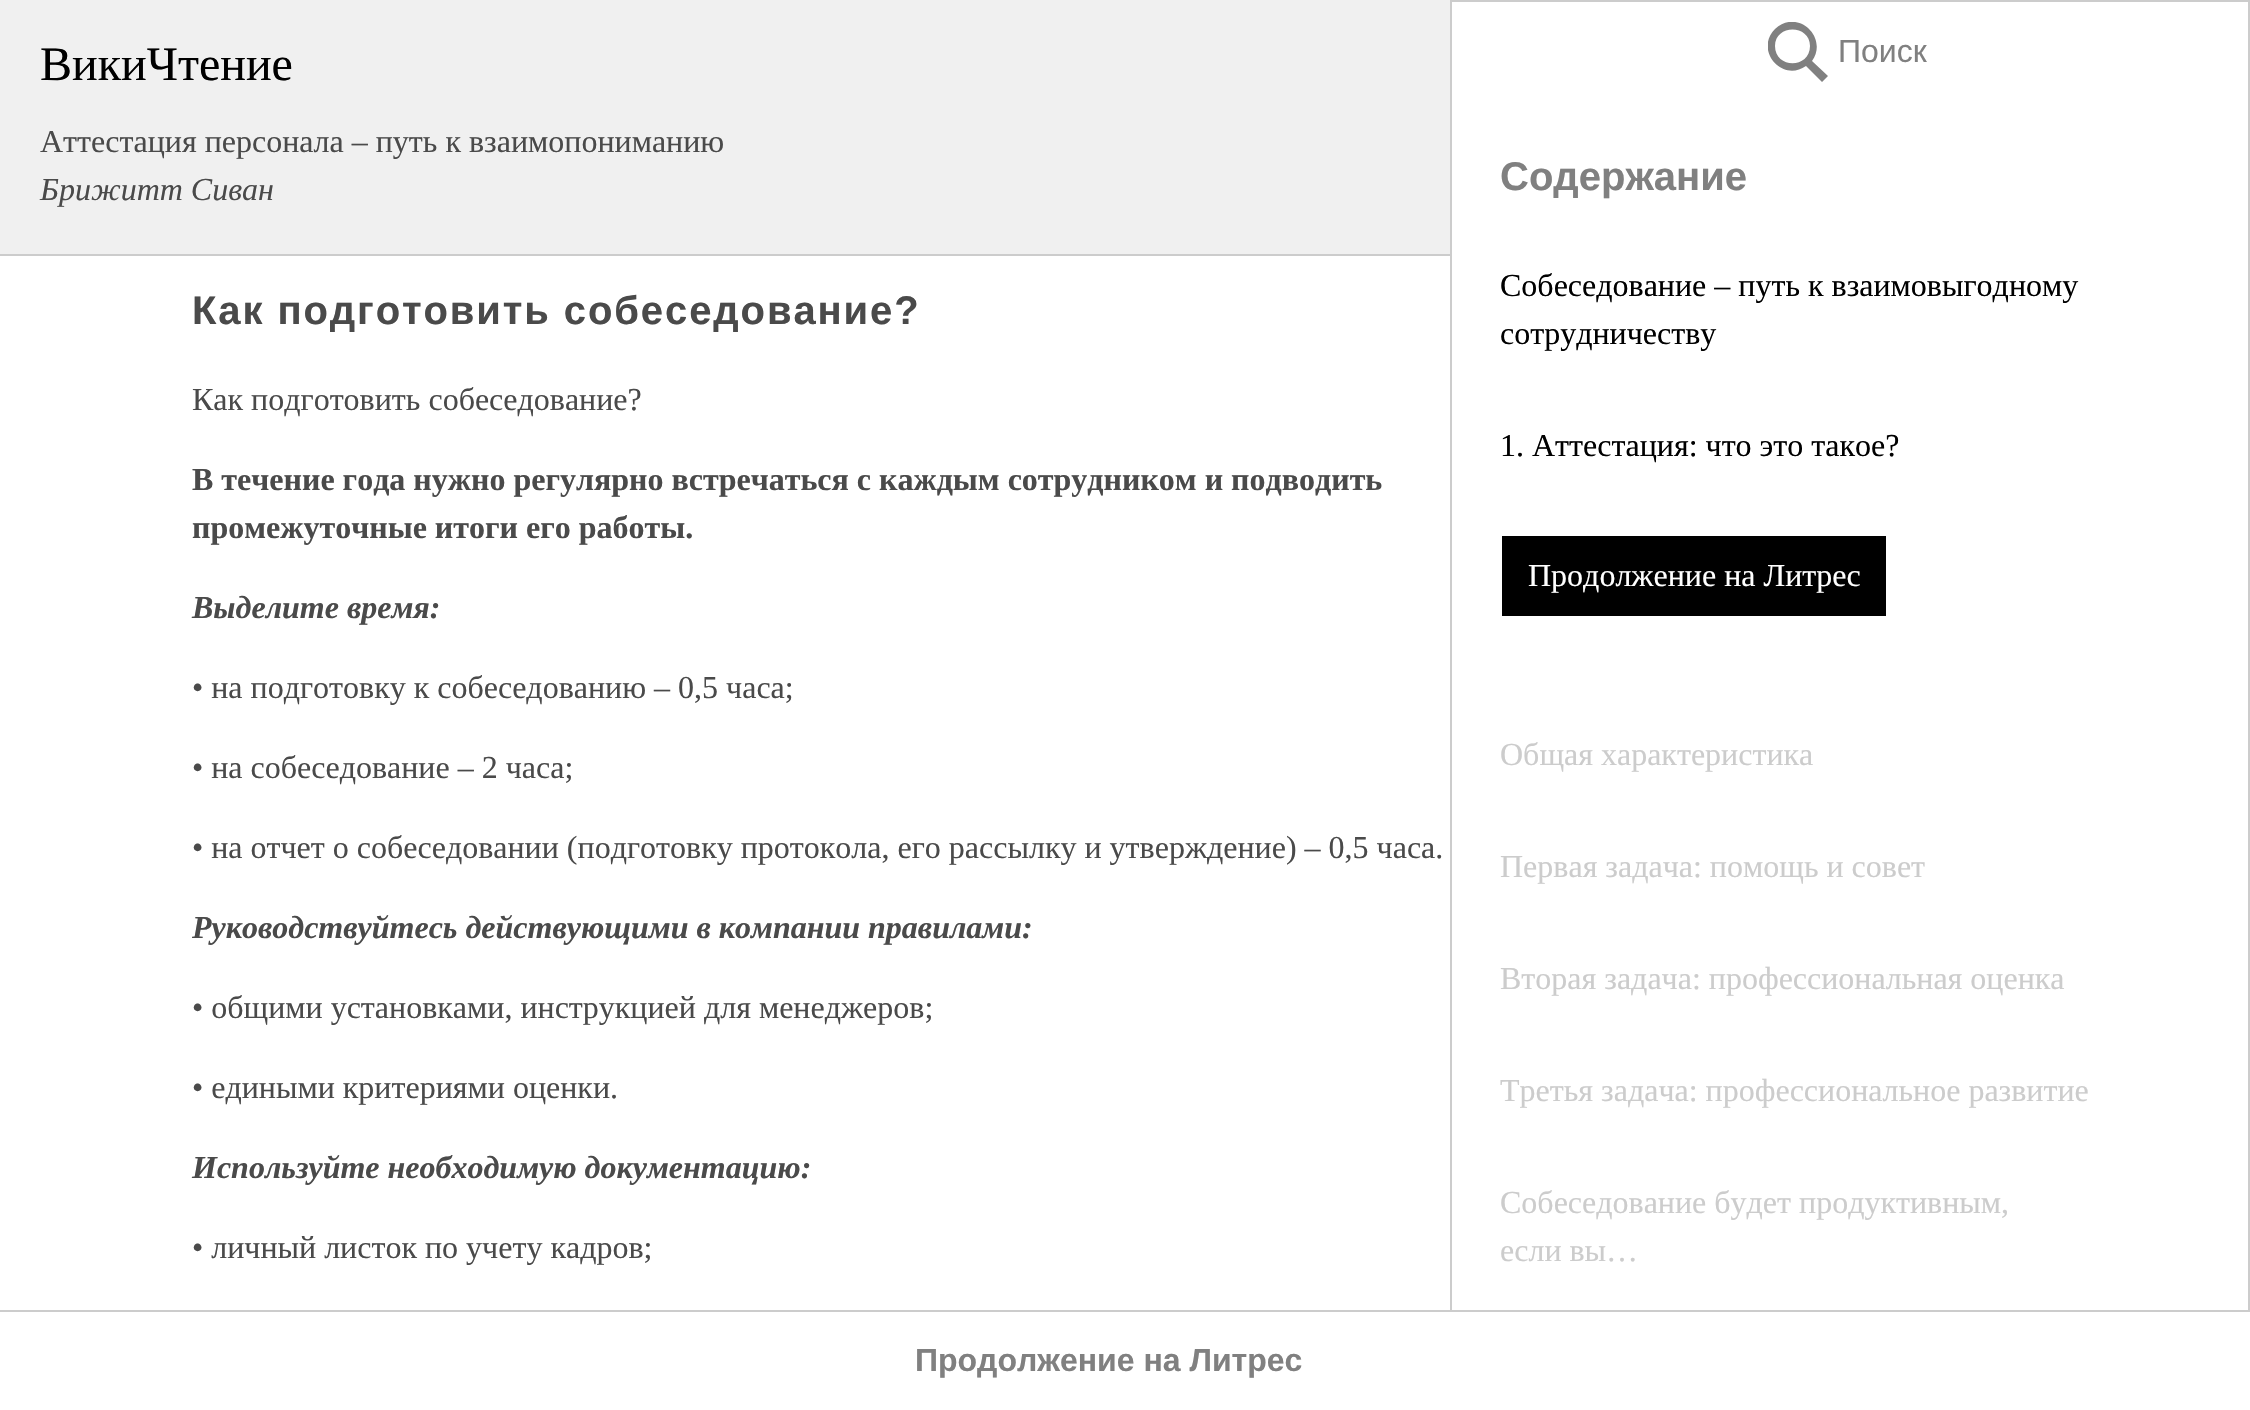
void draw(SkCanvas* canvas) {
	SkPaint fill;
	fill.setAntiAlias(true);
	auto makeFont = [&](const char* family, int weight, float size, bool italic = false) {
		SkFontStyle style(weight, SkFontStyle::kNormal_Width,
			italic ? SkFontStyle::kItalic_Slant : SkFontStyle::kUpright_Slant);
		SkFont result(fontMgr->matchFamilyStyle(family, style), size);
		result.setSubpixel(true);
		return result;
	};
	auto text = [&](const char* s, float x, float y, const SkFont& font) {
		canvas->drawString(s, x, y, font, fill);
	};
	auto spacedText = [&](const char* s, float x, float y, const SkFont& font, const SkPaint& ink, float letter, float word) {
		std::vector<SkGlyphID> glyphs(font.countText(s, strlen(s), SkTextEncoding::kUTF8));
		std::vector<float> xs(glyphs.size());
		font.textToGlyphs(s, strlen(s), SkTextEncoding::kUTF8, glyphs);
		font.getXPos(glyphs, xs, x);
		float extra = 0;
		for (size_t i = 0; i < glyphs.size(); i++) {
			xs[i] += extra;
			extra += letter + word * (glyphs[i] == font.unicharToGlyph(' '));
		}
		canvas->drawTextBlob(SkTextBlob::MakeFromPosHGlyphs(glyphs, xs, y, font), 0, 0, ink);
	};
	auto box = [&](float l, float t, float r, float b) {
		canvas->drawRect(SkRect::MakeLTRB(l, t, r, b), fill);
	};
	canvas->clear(0xFFFFFFFF);
	fill.setColor(0xFFF0F0F0);
	box(0, 0, 1450, 254);
	fill.setColor(0xFFCCCCCC);
	box(0, 254, 1450, 256);
	fill.setStyle(SkPaint::kStroke_Style);
	fill.setStrokeWidth(2);
	canvas->drawRect(SkRect::MakeLTRB(1451, 1, 2249, 1409), fill);
	canvas->save();
	canvas->clipRect(SkRect::MakeLTRB(1768, 22, 1828, 82));
	fill.setStyle(SkPaint::kFill_Style);
	fill.setColor(0xFF808080);
	canvas->drawPath(SkPathBuilder().moveTo(1828, 76).lineTo(1812, 61).cubicTo(1829, 37, 1797, 8, 1775, 29).cubicTo(1754, 50, 1782, 83, 1806, 66).lineTo(1822, 82).close().moveTo(1775, 46).cubicTo(1775, 24, 1810, 24, 1810, 46).cubicTo(1810, 69, 1775, 69, 1775, 46).close().detach(), fill);
	canvas->restore();
	fill.setColor(0xFF000000);
	box(1502, 536, 1886, 616);
	fill.setColor(0xFFFFFFFF);
	box(1450, 1312, 2250, 1410);
	fill.setColor(0xFFCCCCCC);
	box(0, 1310, 2250, 1312);
	auto font1 = makeFont("Liberation Serif", 400, 48);
	fill.setColor(0xFF000000);
	text("ВикиЧтение", 40, 80, font1);
	auto font2 = makeFont("Liberation Serif", 400, 32);
	fill.setColor(0xFF4A4A4A);
	text("Аттестация персонала – путь к взаимопониманию", 40, 152, font2);
	auto font3 = makeFont("Liberation Serif", 400, 32, true);
	text("Брижитт Сиван", 40, 200, font3);
	auto font4 = makeFont("Liberation Sans", 400, 32);
	fill.setColor(0xFF808080);
	text("Поиск", 1838, 62, font4);
	auto font5 = makeFont("Liberation Sans", 700, 40);
	text("Содержание", 1500, 190, font5);
	fill.setColor(0xFF000000);
	text("Собеседование – путь к взаимовыгодному", 1500, 296, font2);
	text("сотрудничеству", 1500, 344, font2);
	text("1. Аттестация: что это такое?", 1500, 456, font2);
	fill.setColor(0xFFFFFFFF);
	text("Продолжение на Литрес", 1528, 586, font2);
	fill.setColor(0xFFCCCCCC);
	text("Общая характеристика", 1500, 765, font2);
	text("Первая задача: помощь и совет", 1500, 877, font2);
	text("Вторая задача: профессиональная оценка", 1500, 989, font2);
	text("Третья задача: профессиональное развитие", 1500, 1101, font2);
	text("Собеседование будет продуктивным,", 1500, 1213, font2);
	text("если вы…", 1500, 1261, font2);
	fill.setColor(0xFF4A4A4A);
	spacedText("Как подготовить собеседование?", 192, 324, font5, fill, 1.9f, 0);
	text("Как подготовить собеседование?", 192, 410, font2);
	auto font6 = makeFont("Liberation Serif", 700, 32);
	text("В течение года нужно регулярно встречаться с каждым сотрудником и подводить", 192, 490, font6);
	text("промежуточные итоги его работы.", 192, 538, font6);
	auto font7 = makeFont("Liberation Serif", 700, 32, true);
	text("Выделите время:", 192, 618, font7);
	text("• на подготовку к собеседованию – 0,5 часа;", 192, 698, font2);
	text("• на собеседование – 2 часа;", 192, 778, font2);
	text("• на отчет о собеседовании (подготовку протокола, его рассылку и утверждение) – 0,5 часа.", 192, 858, font2);
	text("Руководствуйтесь действующими в компании правилами:", 192, 938, font7);
	text("• общими установками, инструкцией для менеджеров;", 192, 1018, font2);
	text("• едиными критериями оценки.", 192, 1098, font2);
	text("Используйте необходимую документацию:", 192, 1178, font7);
	text("• личный листок по учету кадров;", 192, 1258, font2);
	auto font8 = makeFont("Liberation Sans", 700, 32);
	fill.setColor(0xFF808080);
	text("Продолжение на Литрес", 915, 1371, font8);
}
